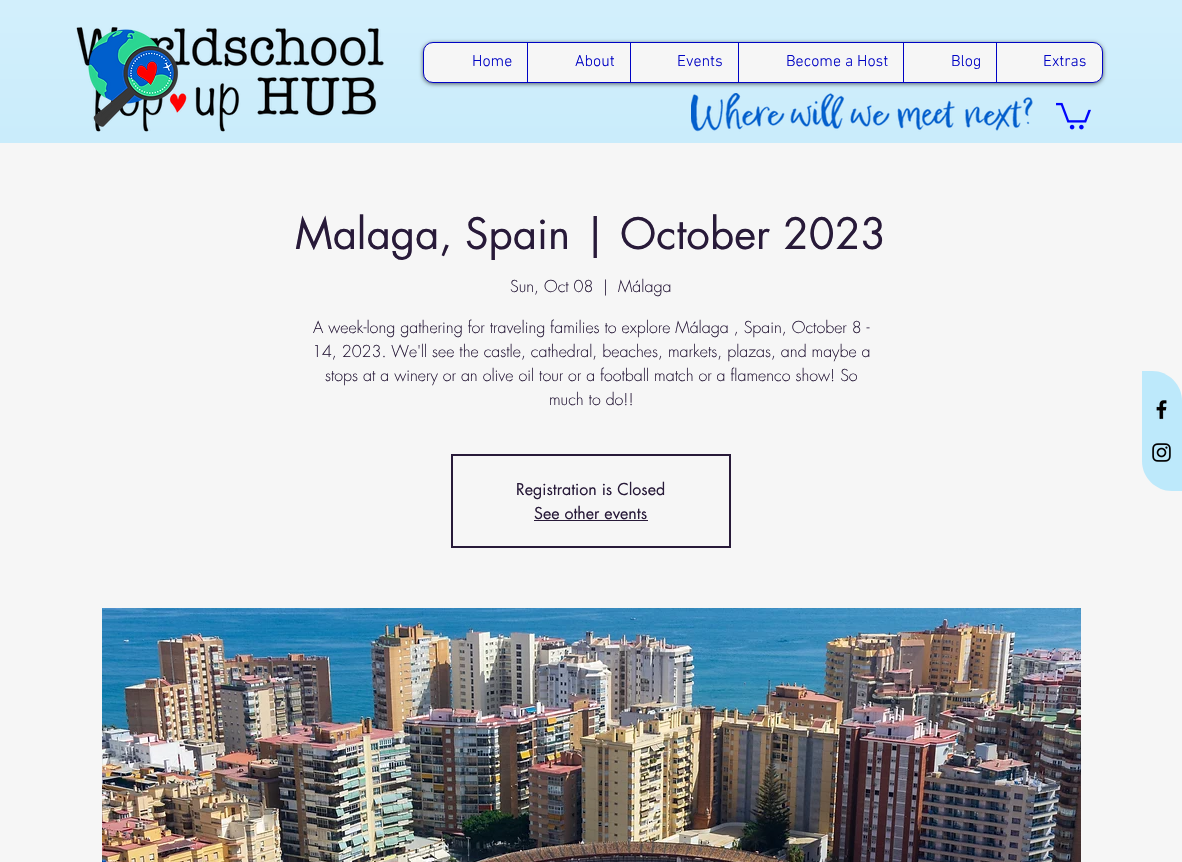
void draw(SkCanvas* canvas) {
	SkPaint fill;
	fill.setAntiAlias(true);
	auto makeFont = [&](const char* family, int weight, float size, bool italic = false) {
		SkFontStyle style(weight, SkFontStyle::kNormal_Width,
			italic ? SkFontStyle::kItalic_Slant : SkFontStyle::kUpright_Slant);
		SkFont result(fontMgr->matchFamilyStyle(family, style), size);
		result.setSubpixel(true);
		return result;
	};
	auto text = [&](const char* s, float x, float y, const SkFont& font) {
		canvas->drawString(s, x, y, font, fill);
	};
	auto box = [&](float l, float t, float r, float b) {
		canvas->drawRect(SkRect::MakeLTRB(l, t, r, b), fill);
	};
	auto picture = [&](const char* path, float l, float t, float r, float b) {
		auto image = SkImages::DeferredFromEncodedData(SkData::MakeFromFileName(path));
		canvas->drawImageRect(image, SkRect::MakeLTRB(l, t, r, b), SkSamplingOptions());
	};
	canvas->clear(0xFFF6F6F6);
	fill.setColor(0xFFC3EAFB);
	box(0, 0, 1182, 143);
	picture("image0.png", 0, 0, 1182, 143);
	picture("image1.png", 76, 27, 384, 132);
	picture("image2.png", 691, 93, 1033, 132);
	picture("image3.png", 1056, 102, 1091, 130);
	picture("image4.png", 88, 29, 179, 127);
	fill.setColor(0x99000000);
	fill.setMaskFilter(SkMaskFilter::MakeBlur(kNormal_SkBlurStyle, 2));
	canvas->drawRoundRect(SkRect::MakeLTRB(423, 43, 1103, 84), 10, 10, fill);
	fill.setMaskFilter(nullptr);
	fill.setColor(0xFFF6F6F6);
	canvas->drawRoundRect(SkRect::MakeLTRB(423.5f, 42.5f, 1102.5f, 82.5f), 9.5f, 9.5f, fill);
	fill.setStyle(SkPaint::kStroke_Style);
	fill.setStrokeWidth(1);
	fill.setColor(0xFF0003C4);
	canvas->drawRoundRect(SkRect::MakeLTRB(423.5f, 42.5f, 1102.5f, 82.5f), 9.5f, 9.5f, fill);
	fill.setStyle(SkPaint::kFill_Style);
	box(527, 43, 528, 82);
	box(630, 43, 631, 82);
	box(738, 43, 739, 82);
	box(903, 43, 904, 82);
	box(996, 43, 997, 82);
	fill.setStyle(SkPaint::kStroke_Style);
	fill.setStrokeWidth(2);
	fill.setColor(0xFF281A39);
	canvas->drawRect(SkRect::MakeLTRB(452, 455, 730, 547), fill);
	fill.setStyle(SkPaint::kFill_Style);
	box(534, 520, 648, 521);
	picture("image5.png", 102, 608, 1081, 862);
	fill.setColor(0xFFBDE9FB);
	canvas->drawPath(SkPathBuilder().moveTo(1142, 371).lineTo(1152, 371).cubicTo(1168.5f, 371, 1182, 384.5f, 1182, 401).lineTo(1182, 491).lineTo(1172, 491).cubicTo(1155.5f, 491, 1142, 477.5f, 1142, 461).close().detach(), fill);
	picture("image6.png", 1156, 400, 1167, 420);
	picture("image7.png", 1152, 443, 1171, 462);
	auto font1 = makeFont("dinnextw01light", 300, 16);
	fill.setColor(0xFF0003C4);
	text("Home", 472, 66, font1);
	text("About", 575, 66, font1);
	text("Events", 677, 66, font1);
	text("Become a Host", 786, 66, font1);
	text("Blog", 951, 66, font1);
	text("Extras", 1043, 66, font1);
	auto font2 = makeFont("futura", 400, 42);
	fill.setColor(0xFF281A39);
	text("Malaga, Spain | October 2023", 295, 249, font2);
	auto font3 = makeFont("futura", 300, 16);
	text("Sun, Oct 08", 510, 292, font3);
	text("|", 603, 292, font3);
	text("Málaga", 618, 292, font3);
	text("A week-long gathering for traveling families to explore Málaga , Spain, October 8 -", 313, 333, font3);
	text("14, 2023. We'll see the castle, cathedral, beaches, markets, plazas, and maybe a", 312, 357, font3);
	text("stops at a winery or an olive oil tour or a football match or a flamenco show! So", 325, 381, font3);
	text("much to do!!", 549, 405, font3);
	auto font4 = makeFont("futura", 400, 16);
	text("Registration is Closed", 516, 495, font4);
	text("See other events", 534, 519, font4);
}
